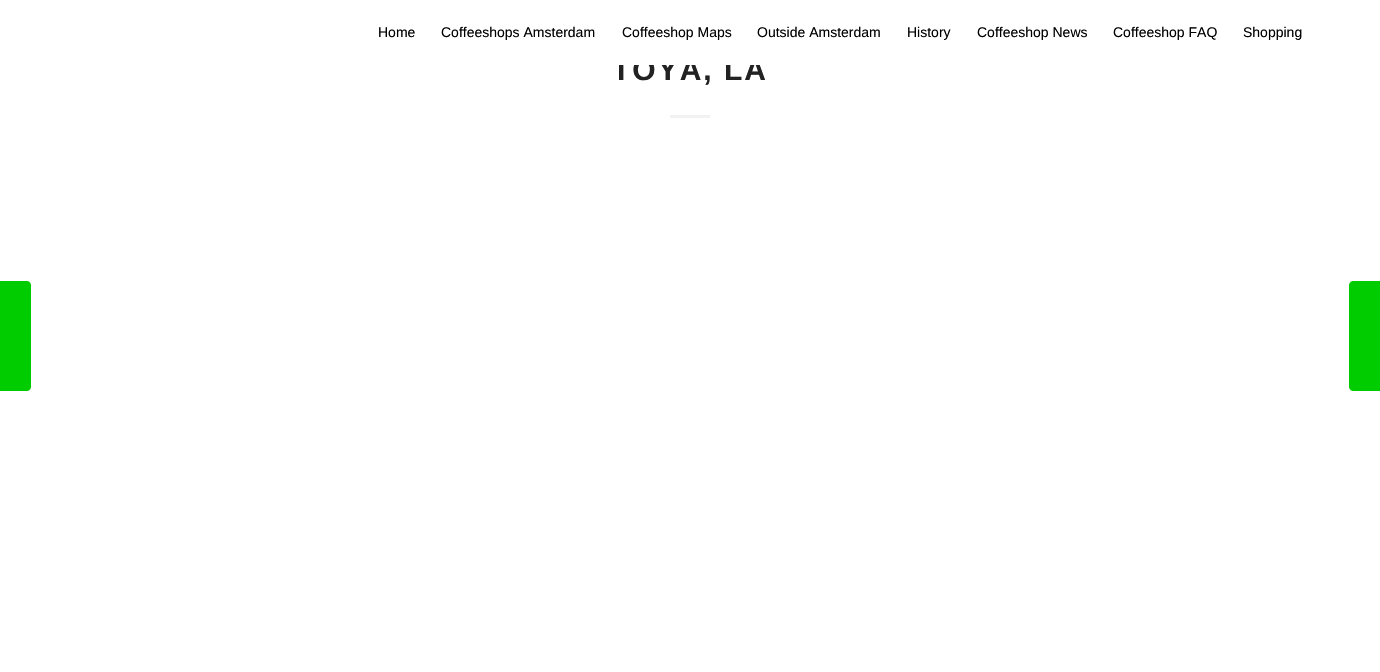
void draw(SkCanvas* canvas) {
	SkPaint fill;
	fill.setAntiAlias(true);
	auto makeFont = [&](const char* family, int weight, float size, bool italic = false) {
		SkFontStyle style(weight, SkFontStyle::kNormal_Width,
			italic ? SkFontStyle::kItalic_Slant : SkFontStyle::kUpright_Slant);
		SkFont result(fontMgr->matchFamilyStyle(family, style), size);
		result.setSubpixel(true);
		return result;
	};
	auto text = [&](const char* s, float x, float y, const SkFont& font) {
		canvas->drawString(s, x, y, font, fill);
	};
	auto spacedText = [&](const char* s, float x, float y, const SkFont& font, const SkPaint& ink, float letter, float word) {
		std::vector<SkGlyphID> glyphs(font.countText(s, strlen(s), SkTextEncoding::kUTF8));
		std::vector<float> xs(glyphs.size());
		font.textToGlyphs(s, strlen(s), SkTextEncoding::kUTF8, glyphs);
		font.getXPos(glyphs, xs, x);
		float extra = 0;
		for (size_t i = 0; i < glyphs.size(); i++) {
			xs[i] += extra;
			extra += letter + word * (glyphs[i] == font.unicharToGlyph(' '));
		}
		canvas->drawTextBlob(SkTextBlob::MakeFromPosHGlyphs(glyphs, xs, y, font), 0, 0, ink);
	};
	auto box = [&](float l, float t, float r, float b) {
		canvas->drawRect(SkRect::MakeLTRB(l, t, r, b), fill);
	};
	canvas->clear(0xFFFFFFFF);
	fill.setColor(0xFFF2F2F2);
	box(670, 115, 710, 118);
	fill.setColor(0xFF00CC00);
	canvas->drawPath(SkPathBuilder().moveTo(0, 281).lineTo(27, 281).cubicTo(29, 281, 31, 283, 31, 285).lineTo(31, 387).cubicTo(31, 389, 29, 391, 27, 391).lineTo(0, 391).close().detach(), fill);
	canvas->drawPath(SkPathBuilder().moveTo(1353, 281).lineTo(1380, 281).lineTo(1380, 391).lineTo(1353, 391).cubicTo(1351, 391, 1349, 389, 1349, 387).lineTo(1349, 285).cubicTo(1349, 283, 1351, 281, 1353, 281).close().detach(), fill);
	auto font1 = makeFont("Liberation Sans", 400, 14);
	fill.setColor(0xFF000000);
	text("Home", 378, 37, font1);
	text("Coffeeshops Amsterdam", 441, 37, font1);
	text("Coffeeshop Maps", 622, 37, font1);
	text("Outside Amsterdam", 757, 37, font1);
	text("History", 907, 37, font1);
	text("Coffeeshop News", 977, 37, font1);
	text("Coffeeshop FAQ", 1113, 37, font1);
	text("Shopping", 1243, 37, font1);
	auto font2 = makeFont("Liberation Sans", 700, 30);
	fill.setColor(0xFF222222);
	spacedText("TOYA, LA", 612, 80, font2, fill, 2, 0);
	fill.setColor(0xFFFFFFFF);
	box(612, 59, 760, 65);
}
